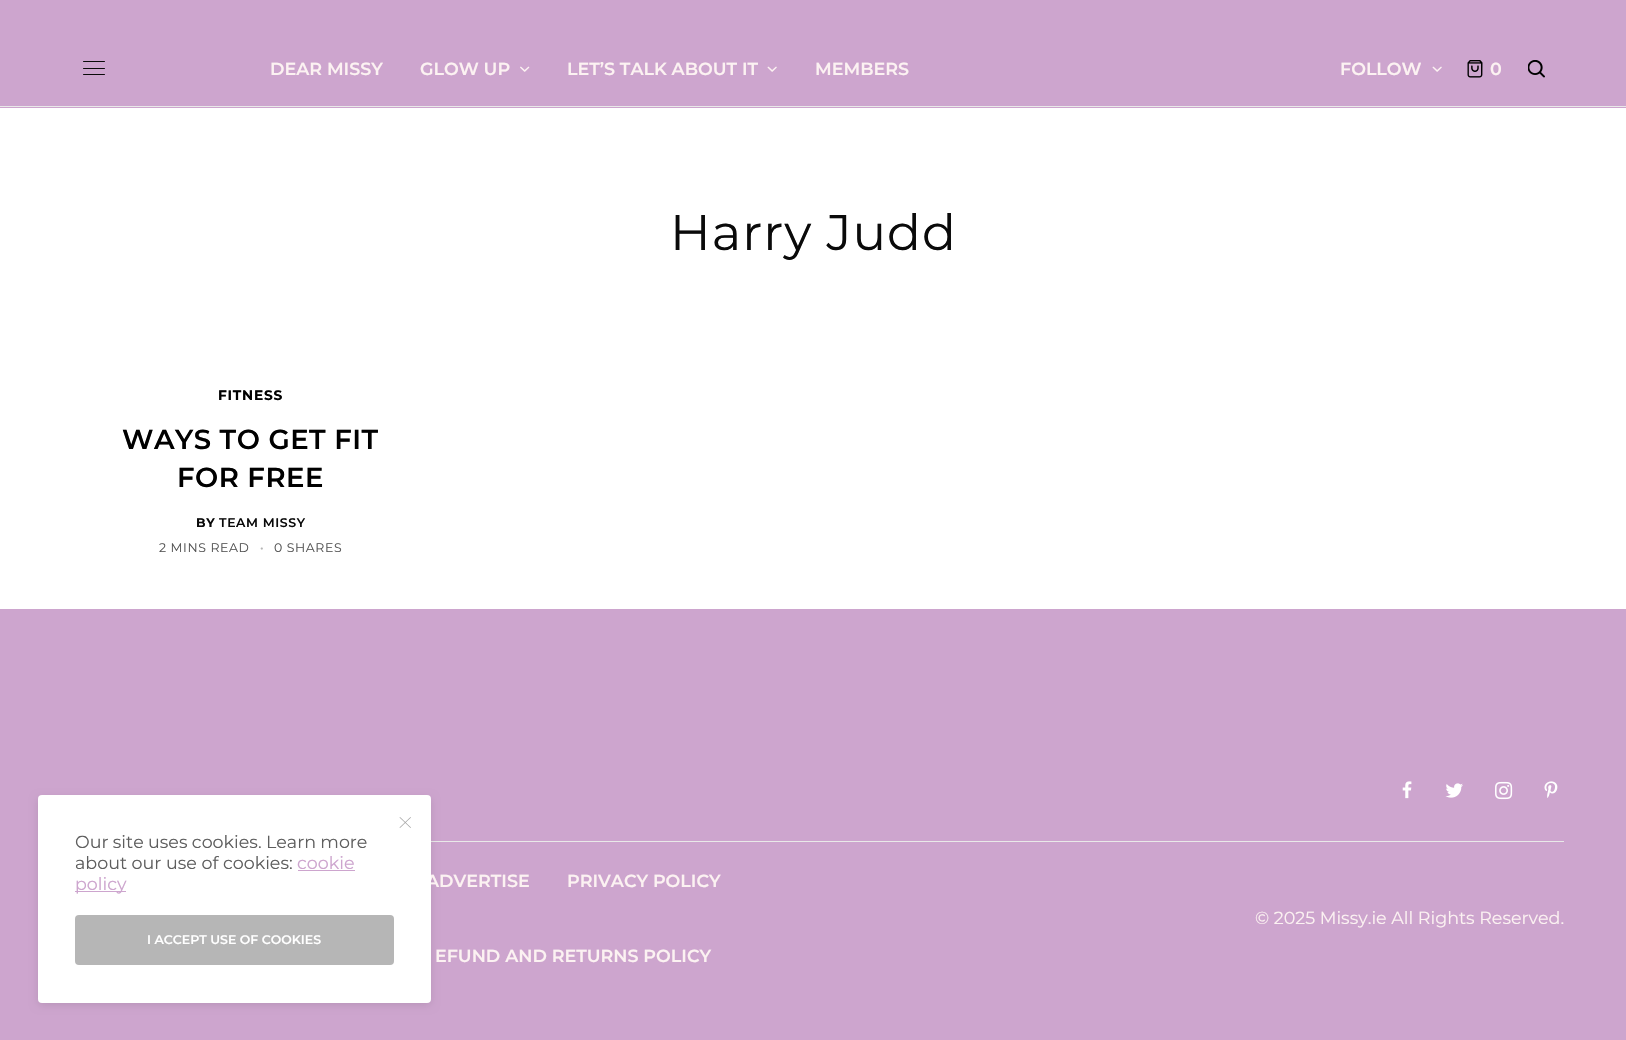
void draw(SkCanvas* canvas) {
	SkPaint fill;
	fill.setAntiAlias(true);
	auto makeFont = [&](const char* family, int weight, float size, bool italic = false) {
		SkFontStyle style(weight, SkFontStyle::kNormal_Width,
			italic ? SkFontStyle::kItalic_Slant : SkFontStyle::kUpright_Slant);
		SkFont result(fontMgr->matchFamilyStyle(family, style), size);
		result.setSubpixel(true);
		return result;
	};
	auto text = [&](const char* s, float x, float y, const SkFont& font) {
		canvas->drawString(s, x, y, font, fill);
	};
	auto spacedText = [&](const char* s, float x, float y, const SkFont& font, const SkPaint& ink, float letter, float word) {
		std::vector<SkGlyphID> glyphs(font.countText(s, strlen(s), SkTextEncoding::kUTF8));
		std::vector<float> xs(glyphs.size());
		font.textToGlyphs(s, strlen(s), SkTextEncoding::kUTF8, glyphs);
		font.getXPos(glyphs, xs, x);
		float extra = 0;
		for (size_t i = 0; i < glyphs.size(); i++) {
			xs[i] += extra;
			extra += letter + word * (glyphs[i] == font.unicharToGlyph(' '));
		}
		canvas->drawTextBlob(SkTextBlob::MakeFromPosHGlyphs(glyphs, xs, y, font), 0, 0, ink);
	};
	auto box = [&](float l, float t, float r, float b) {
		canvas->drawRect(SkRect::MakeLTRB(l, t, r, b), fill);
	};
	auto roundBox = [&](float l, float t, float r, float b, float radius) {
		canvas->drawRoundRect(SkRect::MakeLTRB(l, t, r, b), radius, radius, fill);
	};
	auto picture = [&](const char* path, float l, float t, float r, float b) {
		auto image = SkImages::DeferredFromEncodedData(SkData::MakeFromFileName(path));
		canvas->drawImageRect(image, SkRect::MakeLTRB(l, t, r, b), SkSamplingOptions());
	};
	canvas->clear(0xFFFFFFFF);
	fill.setColor(0xFFCDA5CE);
	box(0, 0, 1626, 108);
	fill.setColor(0xFFE9E9E9);
	box(0, 106, 1626, 107);
	fill.setColor(0xFF0A0A0A);
	roundBox(83, 61, 105, 62, 0.5f);
	roundBox(83, 68, 105, 69, 0.5f);
	roundBox(83, 74, 105, 75, 0.5f);
	picture("image0.png", 520, 66, 530, 72);
	picture("image1.png", 767, 66, 777, 72);
	picture("image1.png", 1432, 66, 1442, 72);
	picture("image2.png", 1467, 60, 1483, 78);
	picture("image3.png", 1528, 60, 1545, 78);
	fill.setColor(0xFFCDA5CE);
	box(0, 609, 1626, 1040);
	fill.setColor(0xFFE9E9E9);
	box(431, 841, 1564, 842);
	fill.setColor(0x1A000000);
	fill.setMaskFilter(SkMaskFilter::MakeBlur(kNormal_SkBlurStyle, 4.5f));
	canvas->drawRoundRect(SkRect::MakeLTRB(38, 798, 431, 1005), 4, 4, fill);
	fill.setMaskFilter(nullptr);
	picture("image4.png", 1402, 781, 1412, 799);
	picture("image5.png", 1445, 783, 1463, 798);
	picture("image6.png", 1495, 781, 1513, 800);
	picture("image7.png", 1544, 781, 1558, 798);
	auto font1 = makeFont("Montserrat", 600, 17.5f);
	fill.setColor(0xFFFCF2F2);
	text("DEAR MISSY", 270, 75, font1);
	text("GLOW UP", 420, 75, font1);
	text("LET’S TALK ABOUT IT", 567, 75, font1);
	text("MEMBERS", 815, 75, font1);
	text("FOLLOW", 1340, 75, font1);
	text("0", 1490, 75, font1);
	auto font2 = makeFont("Montserrat", 400, 50);
	fill.setColor(0xFF0A0A0A);
	spacedText("Harry Judd", 670, 250, font2, fill, 1, 0);
	auto font3 = makeFont("Montserrat", 700, 13.75f);
	fill.setColor(0xFF000000);
	spacedText("FITNESS", 218, 400, font3, fill, 0.75f, 0);
	auto font4 = makeFont("Montserrat", 600, 27.5f);
	spacedText("WAYS TO GET FIT", 122, 449, font4, fill, 0.5f, 0);
	spacedText("FOR FREE", 177, 487, font4, fill, 0.5f, 0);
	auto font5 = makeFont("Montserrat", 700, 12.5f);
	fill.setColor(0xFF0A0A0A);
	spacedText("BY", 196, 527, font5, fill, 0.6f, 0);
	auto font6 = makeFont("Montserrat", 600, 12.5f);
	spacedText("TEAM MISSY", 219, 527, font6, fill, 0.6f, 0);
	auto font7 = makeFont("Montserrat", 400, 12.5f);
	fill.setColor(0xFF545454);
	spacedText("2 MINS READ", 159, 552, font7, fill, 0.6f, 0);
	fill.setColor(0xFFB5B5B5);
	spacedText("·", 260, 552, font6, fill, 0.6f, 0);
	fill.setColor(0xFF545454);
	spacedText("0 SHARES", 274, 552, font7, fill, 0.6f, 0);
	fill.setColor(0xFFFCF2F2);
	text("ADVERTISE", 426, 887, font1);
	fill.setColor(0xFFFFFFFF);
	roundBox(38, 795, 431, 1003, 4);
	fill.setColor(0xFFA3A3A3);
	canvas->drawPath(SkPathBuilder().moveTo(400, 817).lineTo(411, 827.5f).lineTo(410.5f, 828).lineTo(399.5f, 817.5f).close().detach(), fill);
	canvas->drawPath(SkPathBuilder().moveTo(399.5f, 827.5f).lineTo(410.5f, 817).lineTo(411, 817.5f).lineTo(400, 828).close().detach(), fill);
	fill.setColor(0xFFB6B6B6);
	roundBox(75, 915, 394, 965, 4);
	fill.setColor(0xFFFFFFFF);
	text("I ACCEPT USE OF COOKIES", 147, 944, font6);
	fill.setColor(0xFFCDA5CE);
	box(75, 891, 126, 892);
	auto font8 = makeFont("Montserrat", 400, 17.5f);
	text("policy", 75, 890, font8);
	text("cookie", 297, 869, font8);
	box(298, 870, 355, 871);
	fill.setColor(0xFF5E5E5E);
	text("about our use of cookies:", 75, 869, font8);
	spacedText("Our site uses cookies. Learn more", 75, 848, font8, fill, 0, -0.25f);
	fill.setColor(0xFFFCF2F2);
	text("PRIVACY POLICY", 567, 887, font1);
	text("EFUND AND RETURNS POLICY", 435, 962, font1);
	text("© 2025 Missy.ie All Rights Reserved.", 1255, 924, font8);
}
